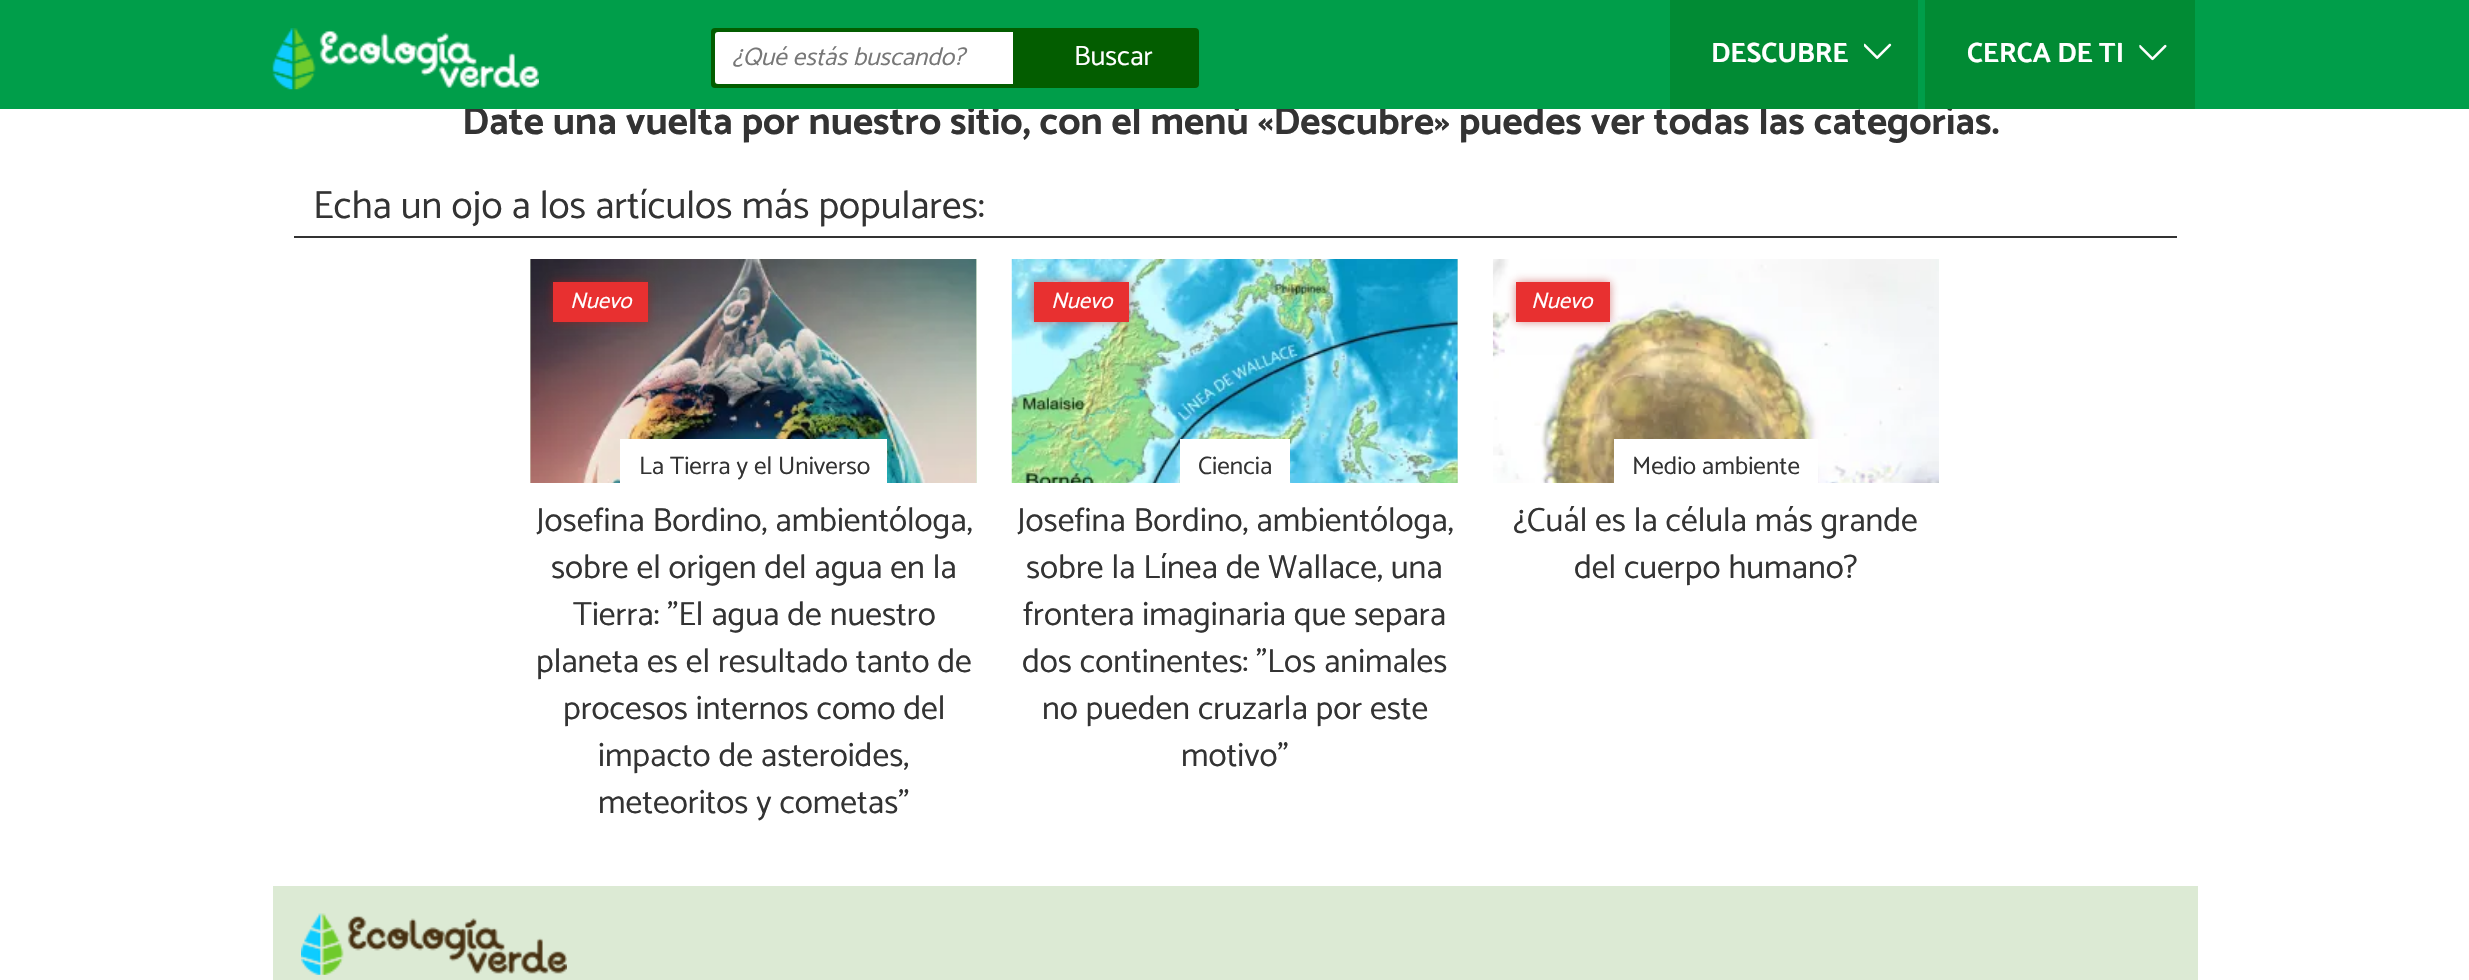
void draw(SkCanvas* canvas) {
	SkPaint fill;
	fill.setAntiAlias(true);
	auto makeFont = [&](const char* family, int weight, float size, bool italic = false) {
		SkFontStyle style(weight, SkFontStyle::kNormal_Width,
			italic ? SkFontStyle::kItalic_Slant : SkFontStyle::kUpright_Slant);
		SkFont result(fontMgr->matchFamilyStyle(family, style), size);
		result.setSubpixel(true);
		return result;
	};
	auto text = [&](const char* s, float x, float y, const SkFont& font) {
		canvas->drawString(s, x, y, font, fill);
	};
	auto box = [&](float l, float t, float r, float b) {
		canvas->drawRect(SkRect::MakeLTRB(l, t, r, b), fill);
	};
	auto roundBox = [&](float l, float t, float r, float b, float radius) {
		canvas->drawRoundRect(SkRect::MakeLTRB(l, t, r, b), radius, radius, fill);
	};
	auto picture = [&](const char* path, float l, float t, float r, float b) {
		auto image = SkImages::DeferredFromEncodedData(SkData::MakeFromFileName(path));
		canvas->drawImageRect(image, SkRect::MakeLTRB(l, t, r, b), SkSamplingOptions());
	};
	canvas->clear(0xFFFFFFFF);
	fill.setColor(0xFF333333);
	box(294, 236, 2177, 238);
	fill.setColor(0xFFDCEAD4);
	box(530, 259, 977, 483);
	picture("image3.png", 530, 259, 977, 483);
	fill.setColor(0x80B31A1A);
	fill.setMaskFilter(SkMaskFilter::MakeBlur(kNormal_SkBlurStyle, 4.5f));
	canvas->drawRect(SkRect::MakeLTRB(553, 282, 648, 322), fill);
	fill.setMaskFilter(nullptr);
	fill.setColor(0xFFE83030);
	box(553, 282, 648, 322);
	fill.setColor(0xFFFFFFFF);
	box(620, 439, 887, 483);
	fill.setColor(0xFFDCEAD4);
	box(1457, 259, 1458, 483);
	picture("image4.png", 1011, 259, 1458, 483);
	fill.setColor(0x80B31A1A);
	fill.setMaskFilter(SkMaskFilter::MakeBlur(kNormal_SkBlurStyle, 4.5f));
	canvas->drawRect(SkRect::MakeLTRB(1034, 282, 1129, 322), fill);
	fill.setMaskFilter(nullptr);
	fill.setColor(0xFFE83030);
	box(1034, 282, 1129, 322);
	fill.setColor(0xFFFFFFFF);
	box(1180, 439, 1290, 483);
	picture("image5.png", 1492, 259, 1939, 483);
	fill.setColor(0x80B31A1A);
	fill.setMaskFilter(SkMaskFilter::MakeBlur(kNormal_SkBlurStyle, 4.5f));
	canvas->drawRect(SkRect::MakeLTRB(1516, 282, 1610, 322), fill);
	fill.setMaskFilter(nullptr);
	fill.setColor(0xFFE83030);
	box(1516, 282, 1610, 322);
	fill.setColor(0xFFFFFFFF);
	box(1614, 439, 1818, 483);
	fill.setColor(0xFFDCEAD4);
	box(273, 886, 2198, 980);
	picture("image6.png", 301, 913, 567, 975);
	auto font1 = makeFont("Catamaran", 700, 39.2f);
	fill.setColor(0xFF333333);
	text("Date una vuelta por nuestro sitio, con el menú «Descubre» puedes ver todas las categorías.", 462, 134, font1);
	fill.setColor(0xFF009E4A);
	box(0, 0, 2469, 109);
	fill.setColor(0xFF018B34);
	box(1925, 0, 2195, 109);
	picture("image2.png", 2139, 44, 2167, 61);
	box(1670, 0, 1918, 109);
	picture("image1.png", 1864, 43, 1892, 59);
	auto font2 = makeFont("Catamaran", 700, 28);
	fill.setColor(0xFFFFFFFF);
	text("CERCA DE TI", 1967, 62, font2);
	text("DESCUBRE", 1711, 62, font2);
	fill.setColor(0xFF035D00);
	roundBox(711, 28, 1199, 88, 4);
	fill.setColor(0xFFFFFFFF);
	canvas->drawPath(SkPathBuilder().moveTo(718, 30).lineTo(1015, 30).lineTo(1015, 86).lineTo(718, 86).cubicTo(715, 86, 713, 84, 713, 81).lineTo(713, 35).cubicTo(713, 32, 715, 30, 718, 30).close().detach(), fill);
	fill.setStyle(SkPaint::kStroke_Style);
	fill.setStrokeWidth(4);
	fill.setColor(0xFF035D00);
	canvas->drawPath(SkPathBuilder().moveTo(718, 30).lineTo(1015, 30).lineTo(1015, 86).lineTo(718, 86).cubicTo(715, 86, 713, 84, 713, 81).lineTo(713, 35).cubicTo(713, 32, 715, 30, 718, 30).close().detach(), fill);
	auto font3 = makeFont("Catamaran", 400, 25.25f, true);
	fill.setStyle(SkPaint::kFill_Style);
	fill.setColor(0xFF777777);
	text("¿Qué estás buscando?", 732, 65, font3);
	auto font4 = makeFont("Catamaran", 400, 28);
	fill.setColor(0xFFFFFFFF);
	text("Buscar", 1074, 65, font4);
	picture("image0.png", 272, 28, 539, 90);
	auto font5 = makeFont("Catamaran", 400, 39.2f);
	fill.setColor(0xFF333333);
	text("Echa un ojo a los artículos más populares:", 313, 218, font5);
	auto font6 = makeFont("Catamaran", 400, 22.5f, true);
	fill.setColor(0xFFFFFFFF);
	text("Nuevo", 570, 308, font6);
	auto font7 = makeFont("Catamaran", 400, 25.25f);
	fill.setColor(0xFF333333);
	text("La Tierra y el Universo", 639, 474, font7);
	auto font8 = makeFont("Catamaran", 400, 33.6f);
	text("Josefina Bordino, ambientóloga,", 536, 531, font8);
	text("sobre el origen del agua en la", 551, 578, font8);
	text("Tierra: \"El agua de nuestro", 573, 625, font8);
	text("planeta es el resultado tanto de", 536, 672, font8);
	text("procesos internos como del", 563, 719, font8);
	text("impacto de asteroides,", 598, 766, font8);
	text("meteoritos y cometas\"", 598, 813, font8);
	fill.setColor(0xFFFFFFFF);
	text("Nuevo", 1051, 308, font6);
	fill.setColor(0xFF333333);
	text("Ciencia", 1198, 474, font7);
	text("Josefina Bordino, ambientóloga,", 1017, 531, font8);
	text("sobre la Línea de Wallace, una", 1026, 578, font8);
	text("frontera imaginaria que separa", 1023, 625, font8);
	text("dos continentes: \"Los animales", 1022, 672, font8);
	text("no pueden cruzarla por este", 1042, 719, font8);
	text("motivo\"", 1181, 766, font8);
	fill.setColor(0xFFFFFFFF);
	text("Nuevo", 1531, 308, font6);
	fill.setColor(0xFF333333);
	text("Medio ambiente", 1632, 474, font7);
	text("¿Cuál es la célula más grande", 1513, 531, font8);
	text("del cuerpo humano?", 1574, 578, font8);
}
